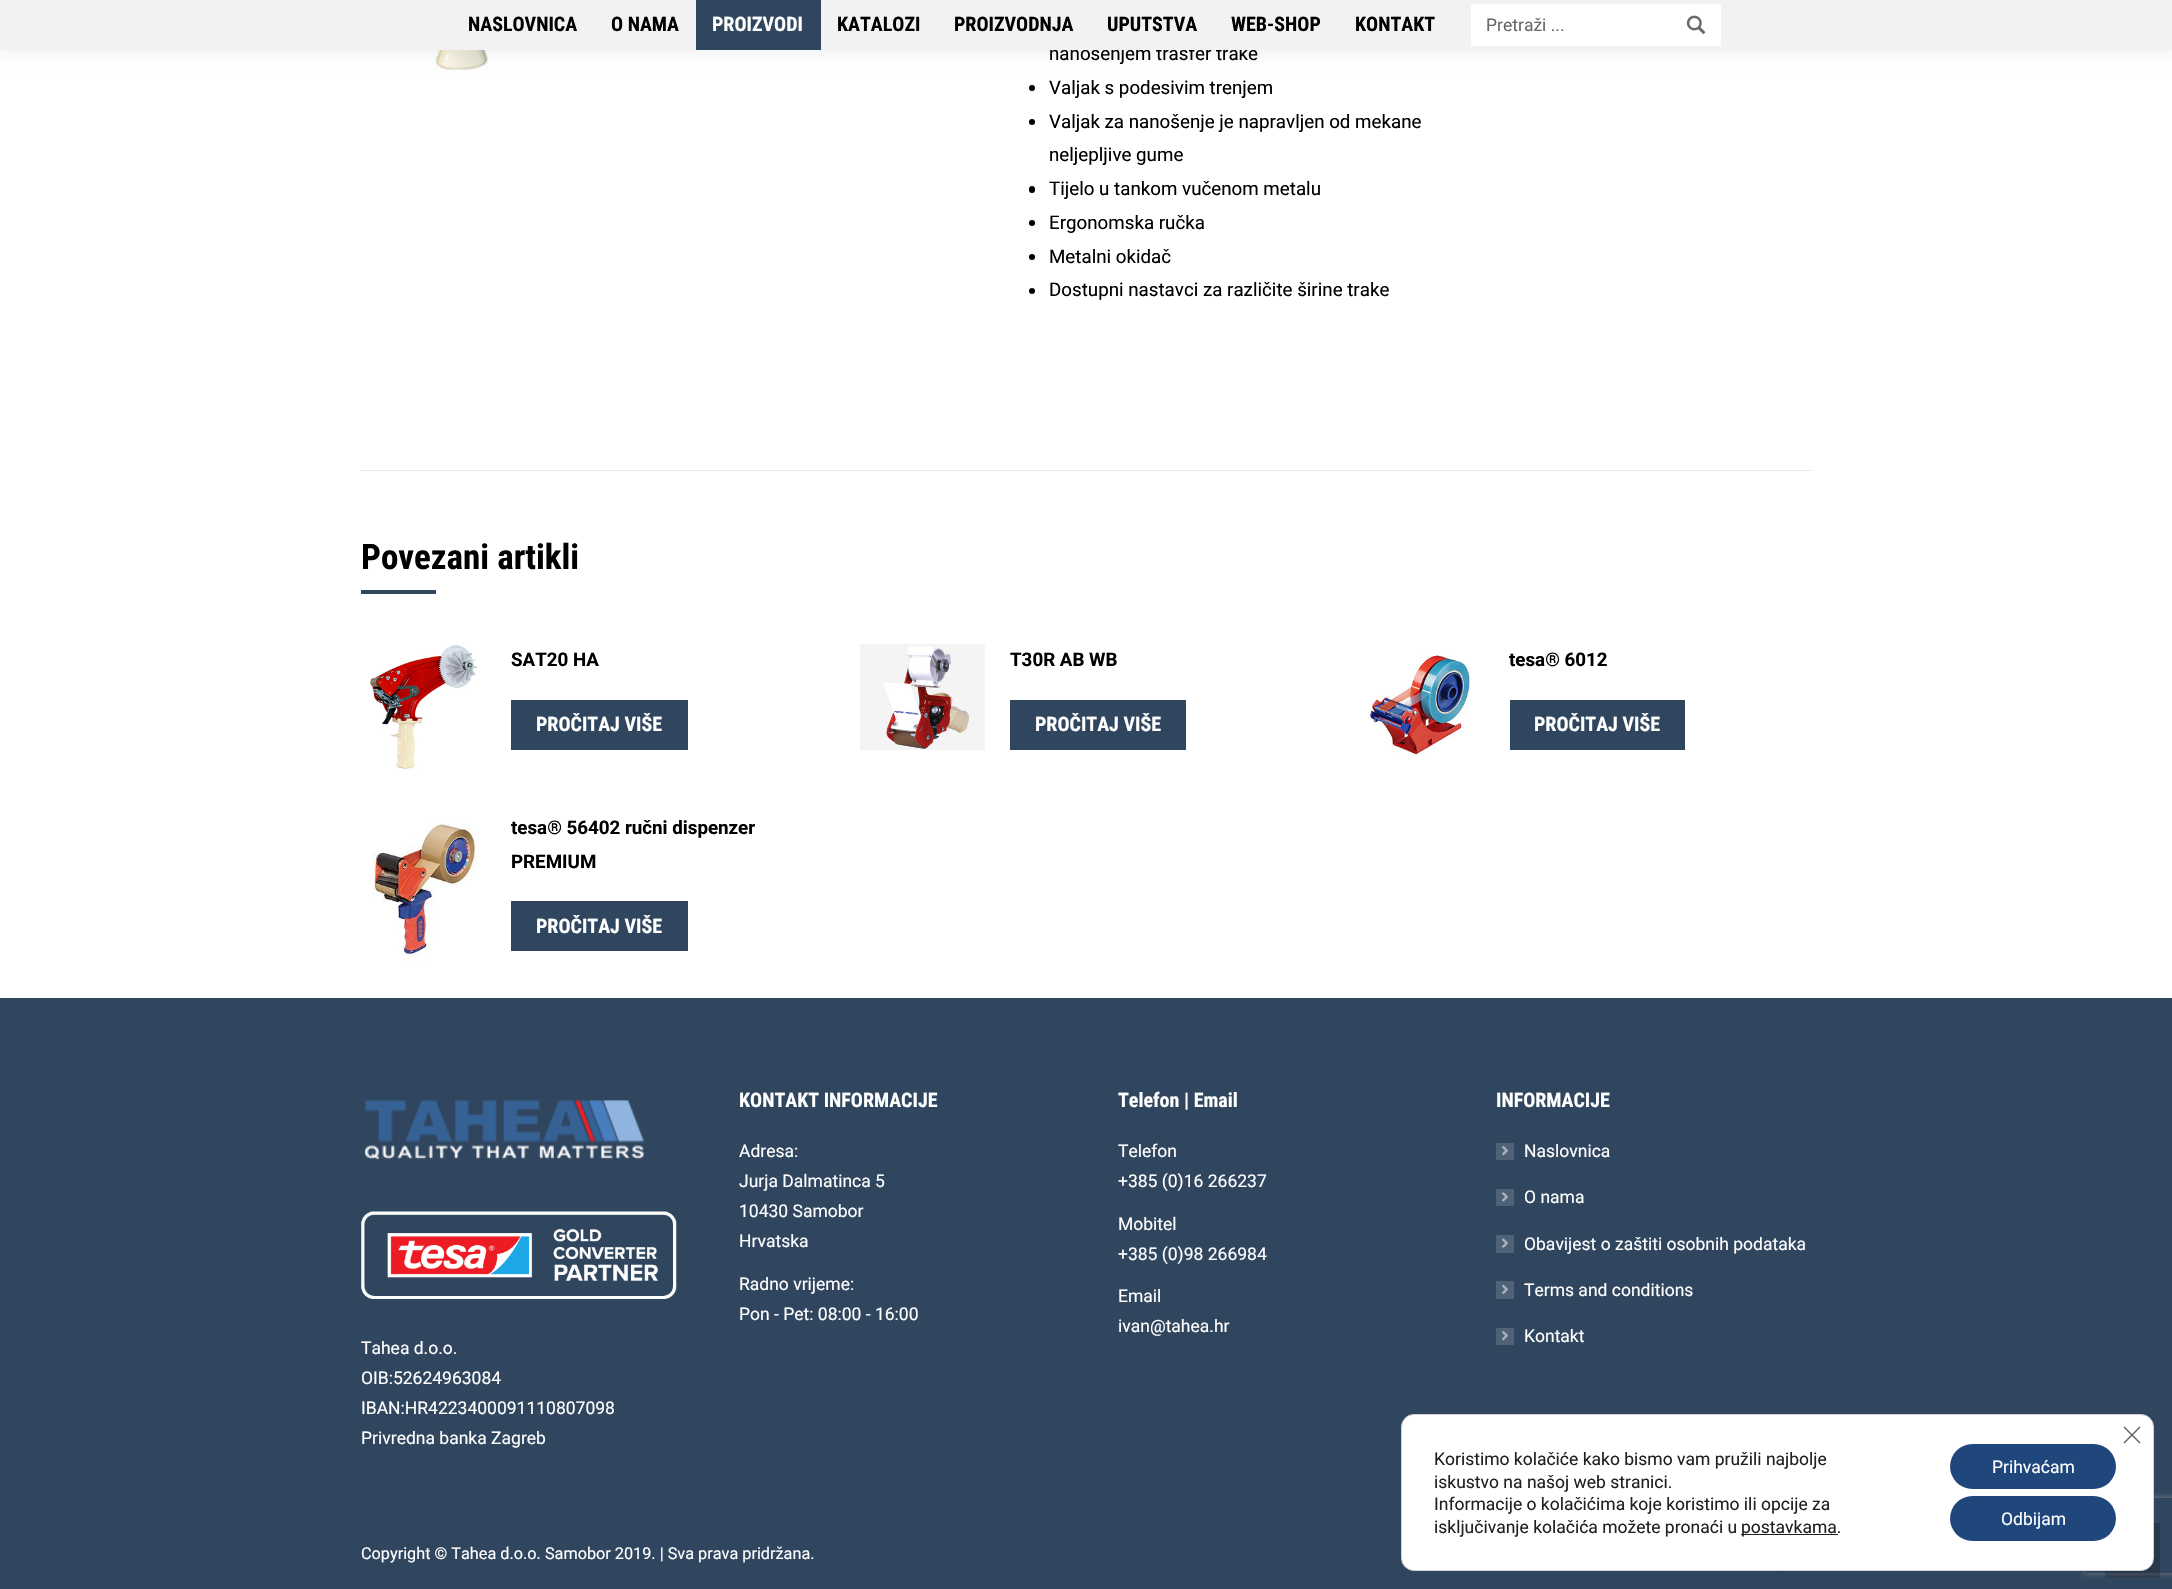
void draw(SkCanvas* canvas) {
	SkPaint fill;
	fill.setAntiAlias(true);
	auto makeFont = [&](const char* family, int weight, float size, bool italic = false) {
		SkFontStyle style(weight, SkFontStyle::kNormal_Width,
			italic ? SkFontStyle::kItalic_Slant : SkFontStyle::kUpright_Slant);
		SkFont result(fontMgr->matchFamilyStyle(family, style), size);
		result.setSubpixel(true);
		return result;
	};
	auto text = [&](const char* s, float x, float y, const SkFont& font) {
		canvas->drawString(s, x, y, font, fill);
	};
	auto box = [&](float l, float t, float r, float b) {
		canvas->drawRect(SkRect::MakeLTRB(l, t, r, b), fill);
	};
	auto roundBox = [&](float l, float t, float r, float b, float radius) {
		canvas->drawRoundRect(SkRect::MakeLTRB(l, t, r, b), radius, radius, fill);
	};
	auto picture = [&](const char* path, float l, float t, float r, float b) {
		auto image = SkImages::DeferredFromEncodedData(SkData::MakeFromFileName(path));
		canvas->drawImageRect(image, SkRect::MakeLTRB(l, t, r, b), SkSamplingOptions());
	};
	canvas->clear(0xFFFFFFFF);
	picture("image1.png", 435, 50, 489, 70);
	fill.setColor(0x12000000);
	fill.setMaskFilter(SkMaskFilter::MakeBlur(kNormal_SkBlurStyle, 9.5f));
	canvas->drawRect(SkRect::MakeLTRB(-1, -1, 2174, 51), fill);
	fill.setMaskFilter(nullptr);
	fill.setColor(0xFF000000);
	canvas->drawCircle(1032, 88, 3, fill);
	canvas->drawCircle(1032, 122, 3, fill);
	roundBox(1029, 186, 1035, 193, 3);
	canvas->drawCircle(1032, 223, 3, fill);
	canvas->drawCircle(1032, 257, 3, fill);
	canvas->drawCircle(1032, 291, 3, fill);
	fill.setColor(0xFFE6E6E6);
	box(361, 470, 1811, 471);
	fill.setColor(0xFF30465F);
	box(361, 590, 436, 594);
	picture("image2.png", 370, 645, 478, 769);
	box(511, 700, 688, 750);
	picture("image3.png", 860, 644, 985, 750);
	box(1010, 700, 1186, 750);
	picture("image4.png", 1368, 654, 1471, 755);
	box(1510, 700, 1685, 750);
	picture("image5.png", 372, 822, 479, 961);
	box(511, 901, 688, 951);
	box(0, 998, 2172, 1589);
	fill.setColor(0xFF4F6277);
	box(1496, 1143, 1514, 1160);
	picture("image6.png", 1502, 1146, 1508, 1156);
	box(1496, 1189, 1514, 1206);
	picture("image7.png", 1502, 1192, 1508, 1202);
	box(1496, 1235, 1514, 1253);
	picture("image8.png", 1502, 1238, 1508, 1248);
	box(1496, 1281, 1514, 1299);
	picture("image9.png", 1502, 1284, 1508, 1294);
	box(1496, 1328, 1514, 1345);
	picture("image6.png", 1502, 1331, 1508, 1341);
	picture("image10.png", 364, 1100, 644, 1160);
	picture("image11.png", 361, 1211, 677, 1299);
	canvas->save();
	canvas->clipPath(SkPathBuilder(SkPathFillType::kEvenOdd).moveTo(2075, 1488).lineTo(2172, 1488).lineTo(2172, 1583).lineTo(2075, 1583).close().moveTo(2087.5f, 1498).lineTo(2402.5f, 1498).cubicTo(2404, 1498, 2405, 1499, 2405, 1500.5f).lineTo(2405, 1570.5f).cubicTo(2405, 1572, 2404, 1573, 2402.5f, 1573).lineTo(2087.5f, 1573).cubicTo(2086, 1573, 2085, 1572, 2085, 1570.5f).lineTo(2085, 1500.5f).cubicTo(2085, 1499, 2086, 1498, 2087.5f, 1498).close().detach(), true);
	fill.setColor(0xFF808080);
	fill.setMaskFilter(SkMaskFilter::MakeBlur(kNormal_SkBlurStyle, 3));
	canvas->drawRoundRect(SkRect::MakeLTRB(2085, 1498, 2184, 1573), 2.5f, 2.5f, fill);
	fill.setMaskFilter(nullptr);
	canvas->restore();
	fill.setColor(0x33000000);
	box(2105, 1523, 2160, 1578);
	fill.setColor(0xFFFFFFFF);
	canvas->drawRoundRect(SkRect::MakeLTRB(1401.5f, 1414.5f, 2153.5f, 1570.5f), 12.5f, 12.5f, fill);
	fill.setStyle(SkPaint::kStroke_Style);
	fill.setStrokeWidth(1);
	fill.setColor(0xFFD3CED2);
	canvas->drawRoundRect(SkRect::MakeLTRB(1401.5f, 1414.5f, 2153.5f, 1570.5f), 12.5f, 12.5f, fill);
	fill.setStyle(SkPaint::kFill_Style);
	fill.setColor(0xFF202020);
	box(1741, 1534, 1838, 1535);
	fill.setColor(0xFF626262);
	canvas->drawPath(SkPathBuilder().moveTo(2139.5f, 1426.5f).lineTo(2140.5f, 1427.5f).lineTo(2124.5f, 1443.5f).lineTo(2123.5f, 1442.5f).close().detach(), fill);
	canvas->drawPath(SkPathBuilder().moveTo(2123.5f, 1427.5f).lineTo(2124.5f, 1426.5f).lineTo(2140.5f, 1442.5f).lineTo(2139.5f, 1443.5f).close().detach(), fill);
	fill.setColor(0xFF1F477C);
	roundBox(1950, 1444, 2116, 1489, 22.5f);
	roundBox(1950, 1496, 2116, 1541, 22.5f);
	auto font1 = makeFont("Roboto", 400, 18.75f);
	fill.setColor(0xFF000000);
	text("nanošenjem trasfer trake", 1049, 60, font1);
	fill.setColor(0xFFF2F2F2);
	box(0, 0, 2172, 50);
	fill.setColor(0xFFFFFFFF);
	box(1471, 4, 1721, 46);
	picture("image0.png", 1686, 15, 1706, 35);
	auto font2 = makeFont("Roboto", 400, 17.5f);
	fill.setColor(0xFF686868);
	text("Pretraži ...", 1486, 31, font2);
	auto font3 = makeFont("Roboto Condensed", 700, 20);
	fill.setColor(0xFF000000);
	text("KONTAKT", 1355, 31, font3);
	text("WEB-SHOP", 1231, 31, font3);
	text("UPUTSTVA", 1107, 31, font3);
	text("PROIZVODNJA", 954, 31, font3);
	text("KATALOZI", 837, 31, font3);
	fill.setColor(0xFF30465F);
	box(696, 0, 821, 50);
	fill.setColor(0xFFFFFFFF);
	text("PROIZVODI", 712, 31, font3);
	fill.setColor(0xFF000000);
	text("O NAMA", 611, 31, font3);
	text("NASLOVNICA", 468, 31, font3);
	text("Valjak s podesivim trenjem", 1049, 94, font1);
	text("Valjak za nanošenje je napravljen od mekane", 1049, 128, font1);
	text("neljepljive gume", 1049, 161, font1);
	text("Tijelo u tankom vučenom metalu", 1049, 195, font1);
	text("Ergonomska ručka", 1049, 229, font1);
	text("Metalni okidač", 1049, 263, font1);
	text("Dostupni nastavci za različite širine trake", 1049, 296, font1);
	auto font4 = makeFont("Roboto Condensed", 700, 35);
	text("Povezani artikli", 361, 569, font4);
	auto font5 = makeFont("Roboto", 700, 18.75f);
	text("SAT20 HA", 511, 666, font5);
	fill.setColor(0xFFFFFFFF);
	text("PROČITAJ VIŠE", 536, 731, font3);
	fill.setColor(0xFF000000);
	text("T30R AB WB", 1010, 666, font5);
	fill.setColor(0xFFFFFFFF);
	text("PROČITAJ VIŠE", 1035, 731, font3);
	fill.setColor(0xFF000000);
	text("tesa® 6012", 1509, 666, font5);
	fill.setColor(0xFFFFFFFF);
	text("PROČITAJ VIŠE", 1534, 731, font3);
	fill.setColor(0xFF000000);
	text("tesa® 56402 ručni dispenzer", 511, 834, font5);
	text("PREMIUM", 511, 868, font5);
	fill.setColor(0xFFFFFFFF);
	text("PROČITAJ VIŠE", 536, 933, font3);
	text("KONTAKT INFORMACIJE", 739, 1107, font3);
	text("Adresa:", 739, 1157, font2);
	text("Jurja Dalmatinca 5", 739, 1187, font2);
	text("10430 Samobor", 739, 1217, font2);
	text("Hrvatska", 739, 1247, font2);
	text("Radno vrijeme:", 739, 1290, font2);
	text("Pon - Pet: 08:00 - 16:00", 739, 1320, font2);
	text("Telefon | Email", 1118, 1107, font3);
	text("Telefon", 1118, 1157, font2);
	text("+385 (0)16 266237", 1118, 1187, font2);
	text("Mobitel", 1118, 1230, font2);
	text("+385 (0)98 266984", 1118, 1260, font2);
	text("Email", 1118, 1302, font2);
	text("ivan@tahea.hr", 1118, 1332, font2);
	text("INFORMACIJE", 1496, 1107, font3);
	text("Naslovnica", 1524, 1157, font2);
	text("O nama", 1524, 1203, font2);
	text("Obavijest o zaštiti osobnih podataka", 1524, 1250, font2);
	text("Terms and conditions", 1524, 1296, font2);
	text("Kontakt", 1524, 1342, font2);
	text("Tahea d.o.o.", 361, 1354, font2);
	text("OIB:52624963084", 361, 1384, font2);
	text("IBAN:HR4223400091110807098", 361, 1414, font2);
	text("Privredna banka Zagreb", 361, 1444, font2);
	auto font6 = makeFont("Roboto", 400, 16.25f);
	text("Copyright © Tahea d.o.o. Samobor 2019. | Sva prava pridržana.", 361, 1559, font6);
	fill.setColor(0xFF202020);
	text("Koristimo kolačiće kako bismo vam pružili najbolje", 1434, 1465, font2);
	text("iskustvo na našoj web stranici.", 1434, 1488, font2);
	text("Informacije o kolačićima koje koristimo ili opcije za", 1434, 1510, font2);
	text("isključivanje kolačića možete pronaći u", 1434, 1533, font2);
	text("postavkama.", 1741, 1533, font2);
	fill.setColor(0xFFFFFFFF);
	text("Prihvaćam", 1992, 1473, font2);
	text("Odbijam", 2001, 1525, font2);
}
